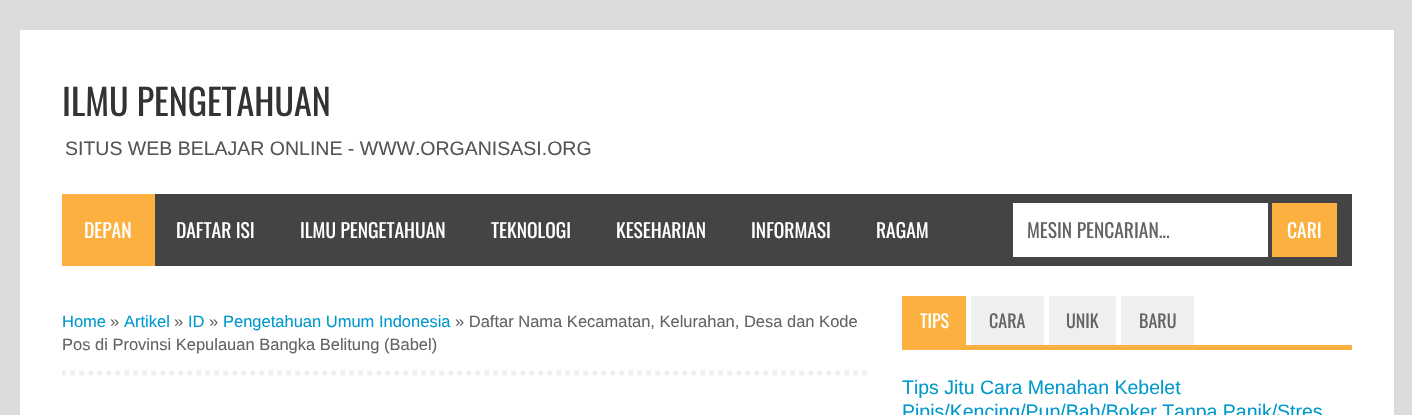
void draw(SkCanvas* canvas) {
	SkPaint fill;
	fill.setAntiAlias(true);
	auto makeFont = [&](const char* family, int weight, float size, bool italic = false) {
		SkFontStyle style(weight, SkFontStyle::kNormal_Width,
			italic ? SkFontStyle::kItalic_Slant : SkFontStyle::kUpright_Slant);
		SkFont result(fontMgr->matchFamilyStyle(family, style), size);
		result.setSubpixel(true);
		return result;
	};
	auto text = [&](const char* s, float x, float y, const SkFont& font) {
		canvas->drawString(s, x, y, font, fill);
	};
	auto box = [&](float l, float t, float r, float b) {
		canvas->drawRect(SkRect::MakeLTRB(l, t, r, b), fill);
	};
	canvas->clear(0xFFDADBDB);
	fill.setColor(0xFFFFFFFF);
	box(20, 30, 1394, 415);
	fill.setColor(0xFF444444);
	box(155, 194, 1352, 266);
	fill.setColor(0xFFFBB040);
	box(62, 194, 155, 266);
	fill.setColor(0xFFFFFFFF);
	box(1013, 203, 1268, 257);
	fill.setColor(0xFFFBB040);
	box(1272, 203, 1337, 257);
	canvas->save();
	canvas->clipRect(SkRect::MakeLTRB(62, 266, 1352, 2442));
	fill.setStyle(SkPaint::kStroke_Style);
	fill.setStrokeWidth(4.5f);
	fill.setColor(0xFFEEEEEE);
	fill.setPathEffect(SkDashPathEffect::Make({{4.5f, 4.5f}}, 0));
	canvas->drawPath(SkPathBuilder().moveTo(61.5f, 373).lineTo(871.5f, 373).detach(), fill);
	fill.setPathEffect(nullptr);
	canvas->restore();
	fill.setStyle(SkPaint::kFill_Style);
	fill.setColor(0xFFFBB040);
	box(902, 345, 1352, 350);
	box(902, 296, 966, 345);
	fill.setColor(0xFFEDEFF1);
	box(971, 296, 1044, 345);
	box(1049, 296, 1116, 345);
	box(1121, 296, 1194, 345);
	auto font1 = makeFont("Oswald", 400, 36);
	fill.setColor(0xFF333333);
	text("ILMU PENGETAHUAN", 62, 116, font1);
	auto font2 = makeFont("Liberation Sans", 400, 19.5f);
	fill.setColor(0xFF555555);
	text("SITUS WEB BELAJAR ONLINE - WWW.ORGANISASI.ORG", 65, 155, font2);
	auto font3 = makeFont("Oswald", 400, 19.5f);
	fill.setColor(0xFFFFFFFF);
	text("DEPAN", 84, 238, font3);
	text("DAFTAR ISI", 176, 238, font3);
	text("ILMU PENGETAHUAN", 300, 238, font3);
	text("TEKNOLOGI", 491, 238, font3);
	text("KESEHARIAN", 616, 238, font3);
	text("INFORMASI", 751, 238, font3);
	text("RAGAM", 876, 238, font3);
	fill.setColor(0xFF636363);
	text("MESIN PENCARIAN...", 1027, 238, font3);
	fill.setColor(0xFFFFFFFF);
	text("CARI", 1287, 238, font3);
	auto font4 = makeFont("Liberation Sans", 400, 16.5f);
	fill.setColor(0xFF0099CC);
	text("Home", 62, 327, font4);
	fill.setColor(0xFF636363);
	text("»", 110, 327, font4);
	fill.setColor(0xFF0099CC);
	text("Artikel", 124, 327, font4);
	fill.setColor(0xFF636363);
	text("»", 174, 327, font4);
	fill.setColor(0xFF0099CC);
	text("ID", 188, 327, font4);
	fill.setColor(0xFF636363);
	text("»", 209, 327, font4);
	fill.setColor(0xFF0099CC);
	text("Pengetahuan Umum Indonesia", 223, 327, font4);
	fill.setColor(0xFF636363);
	text("» Daftar Nama Kecamatan, Kelurahan, Desa dan Kode", 455, 327, font4);
	text("Pos di Provinsi Kepulauan Bangka Belitung (Babel)", 62, 350, font4);
	auto font5 = makeFont("Oswald", 400, 18);
	fill.setColor(0xFFFFFFFF);
	text("TIPS", 920, 328, font5);
	fill.setColor(0xFF636363);
	text("CARA", 989, 328, font5);
	text("UNIK", 1066, 328, font5);
	text("BARU", 1139, 328, font5);
	fill.setColor(0xFF0099CC);
	text("Tips Jitu Cara Menahan Kebelet", 902, 394, font2);
	text("Pipis/Kencing/Pup/Bab/Boker Tanpa Panik/Stres", 902, 418, font2);
}
